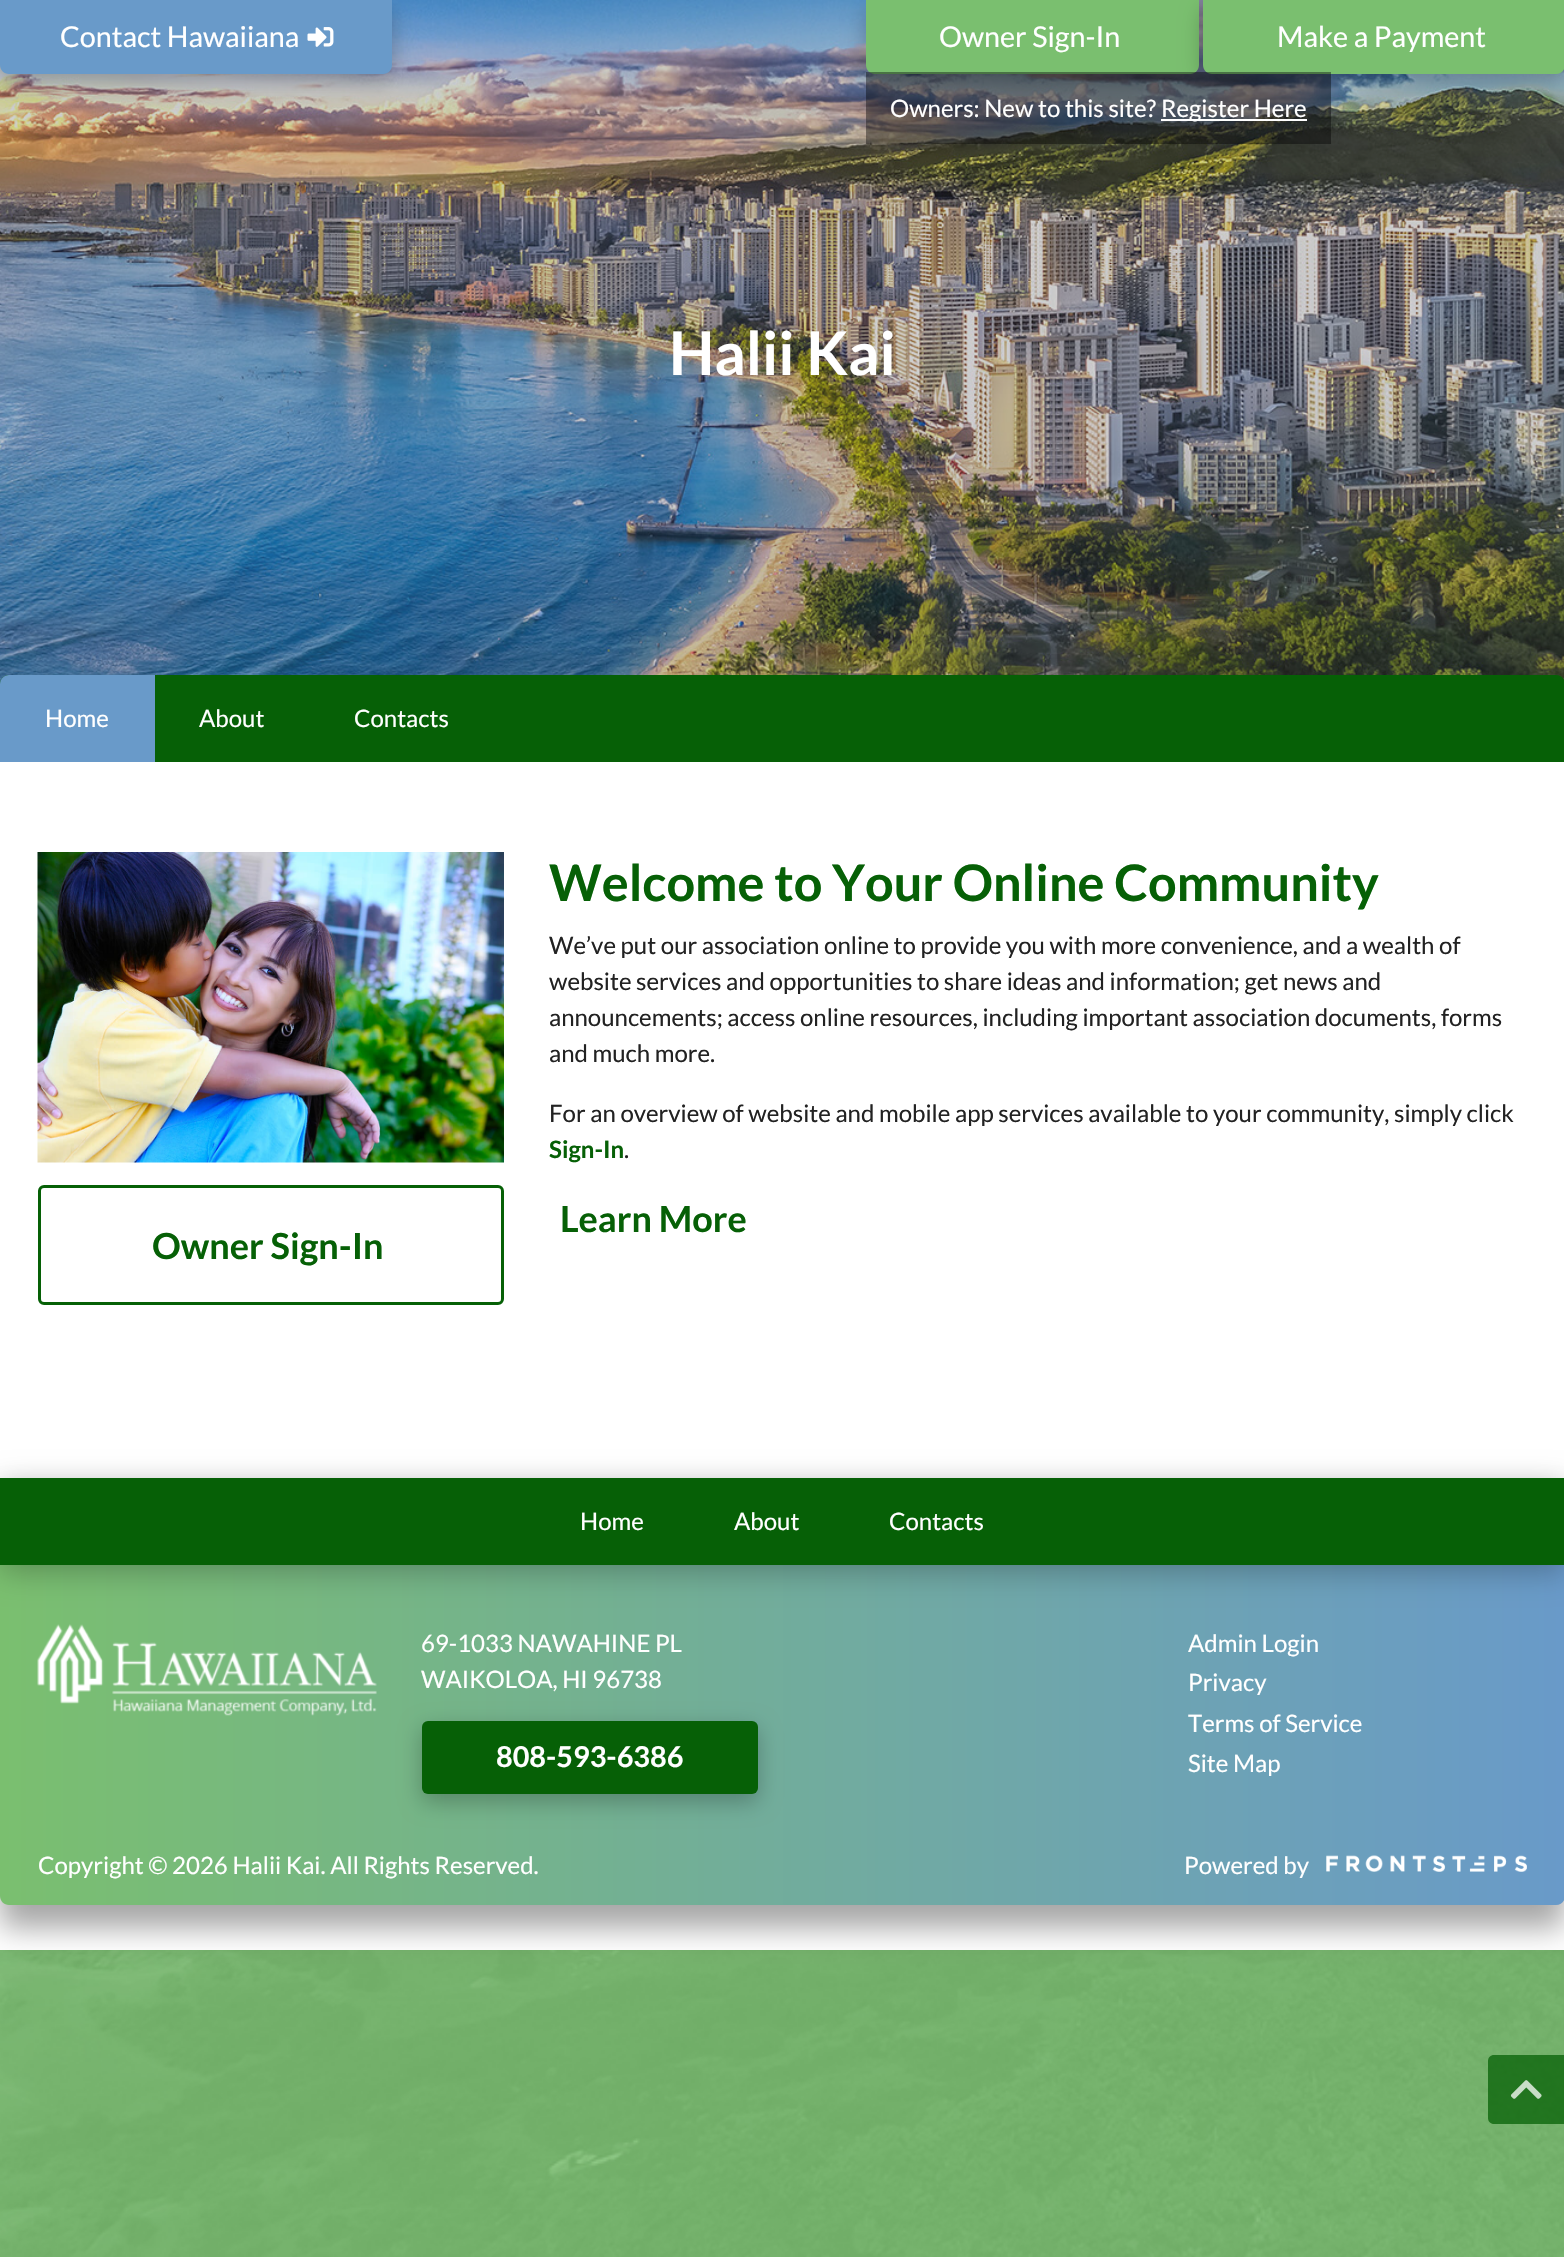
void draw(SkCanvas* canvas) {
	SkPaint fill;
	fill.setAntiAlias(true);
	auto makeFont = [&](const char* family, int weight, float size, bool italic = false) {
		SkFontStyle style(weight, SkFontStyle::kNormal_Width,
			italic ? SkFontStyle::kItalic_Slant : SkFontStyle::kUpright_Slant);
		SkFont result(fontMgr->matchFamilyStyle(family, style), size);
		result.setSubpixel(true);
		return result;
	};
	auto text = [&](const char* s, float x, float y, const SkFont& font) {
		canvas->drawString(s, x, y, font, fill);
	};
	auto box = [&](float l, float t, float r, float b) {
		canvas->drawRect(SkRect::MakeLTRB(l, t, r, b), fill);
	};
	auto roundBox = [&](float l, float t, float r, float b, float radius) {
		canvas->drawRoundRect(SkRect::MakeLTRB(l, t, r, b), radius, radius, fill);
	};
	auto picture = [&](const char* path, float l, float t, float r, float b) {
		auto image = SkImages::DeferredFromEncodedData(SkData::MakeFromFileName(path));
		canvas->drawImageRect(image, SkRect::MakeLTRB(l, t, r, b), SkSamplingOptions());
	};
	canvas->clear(0xFFFFFFFF);
	picture("image0.png", 0, 1950, 1564, 2257);
	picture("image2.png", 0, 0, 1564, 684);
	fill.setColor(0x40000000);
	fill.setMaskFilter(SkMaskFilter::MakeBlur(kNormal_SkBlurStyle, 11));
	canvas->drawRoundRect(SkRect::MakeLTRB(0, 8, 392, 81), 9, 9, fill);
	fill.setMaskFilter(nullptr);
	fill.setColor(0xFF699AC9);
	canvas->drawPath(SkPathBuilder().moveTo(0, 0).lineTo(392, 0).lineTo(392, 65).cubicTo(392, 70, 388, 74, 383, 74).lineTo(9, 74).cubicTo(4, 74, 0, 70, 0, 65).close().detach(), fill);
	picture("image1.png", 307, 27, 334, 47);
	fill.setColor(0x40000000);
	fill.setMaskFilter(SkMaskFilter::MakeBlur(kNormal_SkBlurStyle, 11));
	canvas->drawRoundRect(SkRect::MakeLTRB(866, 8, 1199, 81), 9, 9, fill);
	fill.setMaskFilter(nullptr);
	fill.setColor(0xFF7ABF6F);
	canvas->drawPath(SkPathBuilder().moveTo(866, 0).lineTo(1199, 0).lineTo(1199, 65).cubicTo(1199, 70, 1195, 74, 1190, 74).lineTo(875, 74).cubicTo(870, 74, 866, 70, 866, 65).close().detach(), fill);
	fill.setColor(0x40000000);
	fill.setMaskFilter(SkMaskFilter::MakeBlur(kNormal_SkBlurStyle, 11));
	canvas->drawRoundRect(SkRect::MakeLTRB(1203, 8, 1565, 81), 9, 9, fill);
	fill.setMaskFilter(nullptr);
	fill.setColor(0xFF7ABF6F);
	canvas->drawPath(SkPathBuilder().moveTo(1203, 0).lineTo(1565, 0).lineTo(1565, 65).cubicTo(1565, 70, 1561, 74, 1556, 74).lineTo(1212, 74).cubicTo(1207, 74, 1203, 70, 1203, 65).close().detach(), fill);
	fill.setColor(0x66000000);
	box(866, 72, 1331, 144);
	fill.setColor(0xFFFFFFFF);
	box(1161, 119, 1307, 121);
	fill.setColor(0xFF066006);
	canvas->drawPath(SkPathBuilder().moveTo(9, 675).lineTo(1556, 675).cubicTo(1561, 675, 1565, 679, 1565, 684).lineTo(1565, 762).lineTo(0, 762).lineTo(0, 684).cubicTo(0, 679, 4, 675, 9, 675).close().detach(), fill);
	fill.setColor(0xFF699AC9);
	canvas->drawPath(SkPathBuilder().moveTo(9, 675).lineTo(155, 675).lineTo(155, 762).lineTo(0, 762).lineTo(0, 684).cubicTo(0, 679, 4, 675, 9, 675).close().detach(), fill);
	fill.setColor(0xBF066006);
	canvas->drawPath(SkPathBuilder().moveTo(1494, 2055).lineTo(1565, 2055).lineTo(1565, 2124).lineTo(1494, 2124).cubicTo(1490.5f, 2124, 1488, 2121.5f, 1488, 2118).lineTo(1488, 2061).cubicTo(1488, 2057.5f, 1490.5f, 2055, 1494, 2055).close().detach(), fill);
	picture("image3.png", 1510, 2080, 1542, 2099);
	picture("image4.png", 37, 852, 504, 1163);
	fill.setStyle(SkPaint::kStroke_Style);
	fill.setStrokeWidth(3);
	fill.setColor(0xFF066006);
	canvas->drawRoundRect(SkRect::MakeLTRB(39.5f, 1186.5f, 502.5f, 1303.5f), 4.5f, 4.5f, fill);
	fill.setStyle(SkPaint::kFill_Style);
	fill.setColor(0x59000000);
	fill.setMaskFilter(SkMaskFilter::MakeBlur(kNormal_SkBlurStyle, 15));
	canvas->drawRoundRect(SkRect::MakeLTRB(0, 1500, 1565, 1928), 9, 9, fill);
	fill.setMaskFilter(nullptr);
	{
		const SkColor colors[] = {0xFF699AC9, 0xFF7ABF6F};
		const float stops[] = {0, 1};
		const SkPoint ends[] = {{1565, 1691}, {0, 1691}};
		fill.setShader(SkGradientShader::MakeLinear(ends, colors, stops, 2, SkTileMode::kClamp));
		fill.setAlpha(255);
	}
	canvas->drawPath(SkPathBuilder().moveTo(0, 1478).lineTo(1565, 1478).lineTo(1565, 1896).cubicTo(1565, 1901, 1561, 1905, 1556, 1905).lineTo(9, 1905).cubicTo(4, 1905, 0, 1901, 0, 1896).close().detach(), fill);
	fill.setShader(nullptr);
	fill.setColor(0x40000000);
	fill.setMaskFilter(SkMaskFilter::MakeBlur(kNormal_SkBlurStyle, 15));
	canvas->drawRect(SkRect::MakeLTRB(0, 1485, 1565, 1572), fill);
	fill.setMaskFilter(nullptr);
	fill.setColor(0xFF066006);
	box(0, 1478, 1564, 1565);
	picture("image5.png", 37, 1624, 377, 1716);
	fill.setColor(0x40000000);
	fill.setMaskFilter(SkMaskFilter::MakeBlur(kNormal_SkBlurStyle, 11));
	canvas->drawRoundRect(SkRect::MakeLTRB(422, 1728, 758, 1802), 6, 6, fill);
	fill.setMaskFilter(nullptr);
	fill.setColor(0xFF066006);
	roundBox(422, 1721, 758, 1794, 6);
	picture("image6.png", 1326, 1855, 1527, 1872);
	auto font1 = makeFont("Lato", 400, 28.75f);
	fill.setColor(0xFFFFFFFF);
	text("Contact Hawaiiana", 60, 47, font1);
	text("Owner Sign-In", 939, 47, font1);
	auto font2 = makeFont("Lato", 400, 24);
	text("Owners: New to this site?", 890, 117, font2);
	text("Register Here", 1161, 117, font2);
	text("Make a Payment", 1277, 47, font1);
	auto font3 = makeFont("Lato", 700, 60);
	text("Halii Kai", 669, 375, font3);
	text("Home", 45, 727, font2);
	text("About", 199, 727, font2);
	text("Contacts", 354, 727, font2);
	auto font4 = makeFont("Lato", 700, 50.4f);
	fill.setColor(0xFF066006);
	text("Welcome to Your Online Community", 549, 901, font4);
	fill.setColor(0xFF222222);
	text("We’ve put our association online to provide you with more convenience, and a wealth of", 549, 954, font2);
	text("website services and opportunities to share ideas and information; get news and", 549, 990, font2);
	text("announcements; access online resources, including important association documents, forms", 549, 1026, font2);
	text("and much more.", 549, 1062, font2);
	text("For an overview of website and mobile app services available to your community, simply click", 549, 1122, font2);
	auto font5 = makeFont("Lato", 700, 24);
	fill.setColor(0xFF066006);
	text("Sign-In", 549, 1158, font5);
	fill.setColor(0xFF222222);
	text(".", 624, 1158, font2);
	auto font6 = makeFont("Lato", 700, 36);
	fill.setColor(0xFF066006);
	text("Learn More", 560, 1232, font6);
	text("Owner Sign-In", 152, 1259, font6);
	fill.setColor(0xFFFFFFFF);
	text("Home", 580, 1530, font2);
	text("About", 734, 1530, font2);
	text("Contacts", 889, 1530, font2);
	text("69-1033 NAWAHINE PL", 421, 1652, font2);
	text("WAIKOLOA, HI 96738", 421, 1688, font2);
	auto font7 = makeFont("Lato", 700, 28.75f);
	text("808-593-6386", 496, 1767, font7);
	text("Admin Login", 1188, 1652, font2);
	text("Privacy", 1188, 1691, font2);
	text("Terms of Service", 1188, 1732, font2);
	text("Site Map", 1188, 1772, font2);
	text("Copyright © 2026 Halii Kai. All Rights Reserved.", 38, 1874, font2);
	text("Powered by", 1184, 1874, font2);
}
